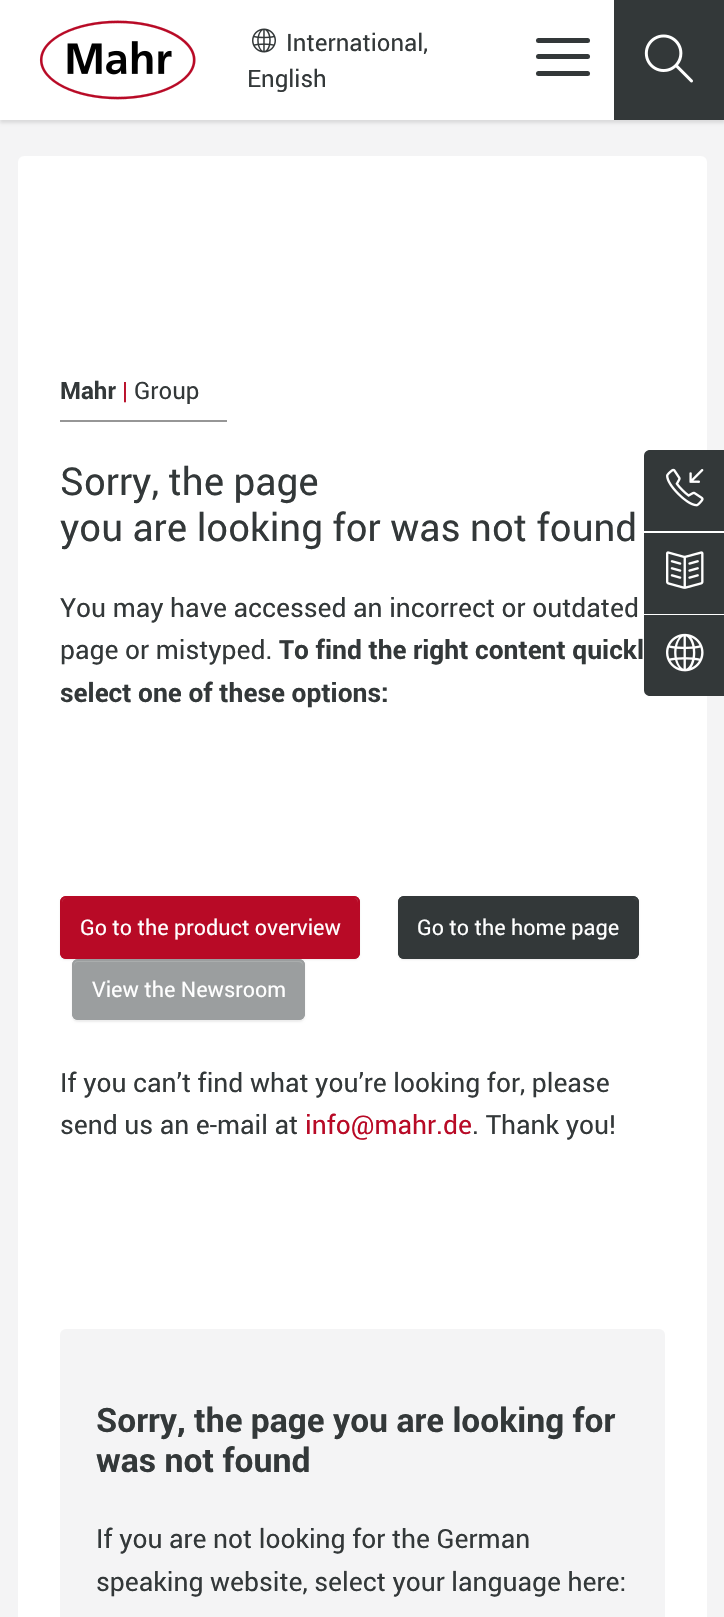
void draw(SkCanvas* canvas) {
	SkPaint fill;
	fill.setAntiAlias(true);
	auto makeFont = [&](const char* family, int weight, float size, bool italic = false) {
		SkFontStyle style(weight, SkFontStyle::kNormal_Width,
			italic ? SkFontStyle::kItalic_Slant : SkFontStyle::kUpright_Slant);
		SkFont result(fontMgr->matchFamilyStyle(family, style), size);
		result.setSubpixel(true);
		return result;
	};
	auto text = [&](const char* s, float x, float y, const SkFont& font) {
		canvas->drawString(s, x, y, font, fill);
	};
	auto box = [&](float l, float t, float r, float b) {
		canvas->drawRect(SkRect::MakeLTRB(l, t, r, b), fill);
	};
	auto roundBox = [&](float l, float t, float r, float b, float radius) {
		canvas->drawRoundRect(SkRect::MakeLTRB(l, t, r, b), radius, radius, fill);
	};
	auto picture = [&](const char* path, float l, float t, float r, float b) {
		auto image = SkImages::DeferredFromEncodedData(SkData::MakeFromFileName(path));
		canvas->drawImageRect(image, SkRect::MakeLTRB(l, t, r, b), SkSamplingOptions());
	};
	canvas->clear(0xFFF4F4F5);
	fill.setColor(0x1A000000);
	fill.setMaskFilter(SkMaskFilter::MakeBlur(kNormal_SkBlurStyle, 1.5f));
	canvas->drawRect(SkRect::MakeLTRB(0, 3, 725, 123), fill);
	fill.setMaskFilter(nullptr);
	fill.setColor(0xFFFFFFFF);
	box(0, 0, 614, 120);
	picture("image0.png", 39, 20, 196, 100);
	picture("image1.png", 252, 28, 276, 53);
	fill.setColor(0xFF333839);
	roundBox(536, 38, 590, 43, 2.5f);
	roundBox(536, 54, 590, 59, 2.5f);
	roundBox(536, 71, 590, 76, 2.5f);
	box(614, 0, 724, 120);
	picture("image2.png", 644, 34, 693, 83);
	fill.setColor(0xFFFFFFFF);
	roundBox(18, 156, 707, 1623, 6);
	fill.setColor(0xFF969696);
	box(60, 420, 227, 422);
	fill.setColor(0x12000000);
	fill.setMaskFilter(SkMaskFilter::MakeBlur(kNormal_SkBlurStyle, 1));
	canvas->drawRoundRect(SkRect::MakeLTRB(60, 897, 360, 960), 6, 6, fill);
	fill.setMaskFilter(nullptr);
	fill.setColor(0xFFB80A26);
	roundBox(60, 896, 360, 959, 6);
	fill.setColor(0xFFC32F47);
	canvas->drawPath(SkPathBuilder().moveTo(66, 898).lineTo(354, 898).cubicTo(356, 898, 358, 901, 358, 903).lineTo(358, 955).cubicTo(359, 954, 359, 953, 359, 952).lineTo(359, 902).cubicTo(359, 899, 357, 897, 354, 897).lineTo(67, 897).cubicTo(64, 897, 62, 899, 62, 902).lineTo(62, 903).cubicTo(62, 901, 64, 898, 66, 898).close().detach(), fill);
	fill.setStyle(SkPaint::kStroke_Style);
	fill.setStrokeWidth(2);
	fill.setColor(0xFFB80A26);
	canvas->drawRoundRect(SkRect::MakeLTRB(61, 897, 359, 958), 5, 5, fill);
	fill.setStyle(SkPaint::kFill_Style);
	fill.setColor(0x12000000);
	fill.setMaskFilter(SkMaskFilter::MakeBlur(kNormal_SkBlurStyle, 1));
	canvas->drawRoundRect(SkRect::MakeLTRB(398, 897, 639, 960), 6, 6, fill);
	fill.setMaskFilter(nullptr);
	fill.setColor(0xFF333839);
	roundBox(398, 896, 639, 959, 6);
	fill.setColor(0xFF525657);
	canvas->drawPath(SkPathBuilder().moveTo(404, 898).lineTo(633, 898).cubicTo(635, 898, 638, 901, 638, 903).lineTo(638, 902).cubicTo(638, 899, 636, 897, 633, 897).lineTo(404, 897).cubicTo(401, 897, 399, 899, 399, 902).lineTo(399, 903).cubicTo(399, 901, 401, 898, 404, 898).close().detach(), fill);
	fill.setStyle(SkPaint::kStroke_Style);
	fill.setColor(0xFF333839);
	canvas->drawRoundRect(SkRect::MakeLTRB(399, 897, 638, 958), 5, 5, fill);
	fill.setStyle(SkPaint::kFill_Style);
	fill.setColor(0x12000000);
	fill.setMaskFilter(SkMaskFilter::MakeBlur(kNormal_SkBlurStyle, 1));
	canvas->drawRoundRect(SkRect::MakeLTRB(72, 960, 305, 1022), 6, 6, fill);
	fill.setMaskFilter(nullptr);
	fill.setColor(0xFF9B9E9F);
	roundBox(72, 959, 305, 1020, 6);
	fill.setColor(0xFFAAADAD);
	canvas->drawPath(SkPathBuilder().moveTo(78, 962).lineTo(298, 962).cubicTo(301, 962, 303, 964, 303, 966).lineTo(303, 965).cubicTo(303, 962, 301, 960, 298, 960).lineTo(79, 960).cubicTo(76, 960, 74, 962, 74, 965).lineTo(74, 966).cubicTo(74, 964, 76, 962, 78, 962).close().detach(), fill);
	fill.setStyle(SkPaint::kStroke_Style);
	fill.setColor(0xFF9B9E9F);
	canvas->drawRoundRect(SkRect::MakeLTRB(73, 960, 304, 1019), 5, 5, fill);
	fill.setStyle(SkPaint::kFill_Style);
	fill.setColor(0xFFF4F4F5);
	roundBox(60, 1329, 665, 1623, 6);
	fill.setColor(0xFF333839);
	canvas->drawPath(SkPathBuilder().moveTo(650, 450).lineTo(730, 450).lineTo(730, 533).lineTo(644, 533).lineTo(644, 456).cubicTo(644, 452.5f, 646.5f, 450, 650, 450).close().detach(), fill);
	fill.setColor(0xFFFFFFFF);
	box(644, 531, 724, 533);
	picture("image3.png", 666, 468, 704, 507);
	fill.setColor(0xFF333839);
	box(644, 533, 724, 614);
	fill.setColor(0xFFFFFFFF);
	box(707, 614, 724, 615);
	picture("image4.png", 666, 551, 704, 589);
	fill.setColor(0xFF333839);
	canvas->drawPath(SkPathBuilder().moveTo(644, 615).lineTo(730, 615).lineTo(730, 696).lineTo(650, 696).cubicTo(646.5f, 696, 644, 693.5f, 644, 690).close().detach(), fill);
	picture("image5.png", 666, 633, 704, 672);
	auto font1 = makeFont("Roboto", 400, 24);
	text("International,", 286, 51, font1);
	text("English", 247, 87, font1);
	auto font2 = makeFont("Roboto", 700, 24);
	text("Mahr", 60, 399, font2);
	fill.setColor(0xFFB80A26);
	text("|", 122, 399, font1);
	fill.setColor(0xFF333839);
	text("Group", 134, 399, font1);
	auto font3 = makeFont("Roboto", 400, 38.4f);
	text("Sorry, the page", 60, 495, font3);
	text("you are looking for was not found", 60, 541, font3);
	auto font4 = makeFont("Roboto", 400, 26.4f);
	text("You may have accessed an incorrect or outdated", 60, 617, font4);
	text("page or mistyped.", 60, 659, font4);
	auto font5 = makeFont("Roboto", 700, 26.4f);
	text("To find the right content quickl", 279, 659, font5);
	text("select one of these options:", 60, 702, font5);
	auto font6 = makeFont("Roboto", 400, 21.6f);
	fill.setColor(0xFFFFFFFF);
	text("Go to the product overview", 80, 935, font6);
	text("Go to the home page", 417, 935, font6);
	text("View the Newsroom", 92, 997, font6);
	fill.setColor(0xFF333839);
	text("If you can’t find what you’re looking for, please", 60, 1092, font4);
	text("send us an e-mail at", 60, 1134, font4);
	fill.setColor(0xFFB80A26);
	text("info@mahr.de", 305, 1134, font4);
	fill.setColor(0xFF333839);
	text(". Thank you!", 472, 1134, font4);
	auto font7 = makeFont("Roboto", 700, 33.6f);
	text("Sorry, the page you are looking for", 96, 1432, font7);
	text("was not found", 96, 1472, font7);
	text("If you are not looking for the German", 96, 1548, font4);
	text("speaking website, select your language here:", 96, 1591, font4);
}
